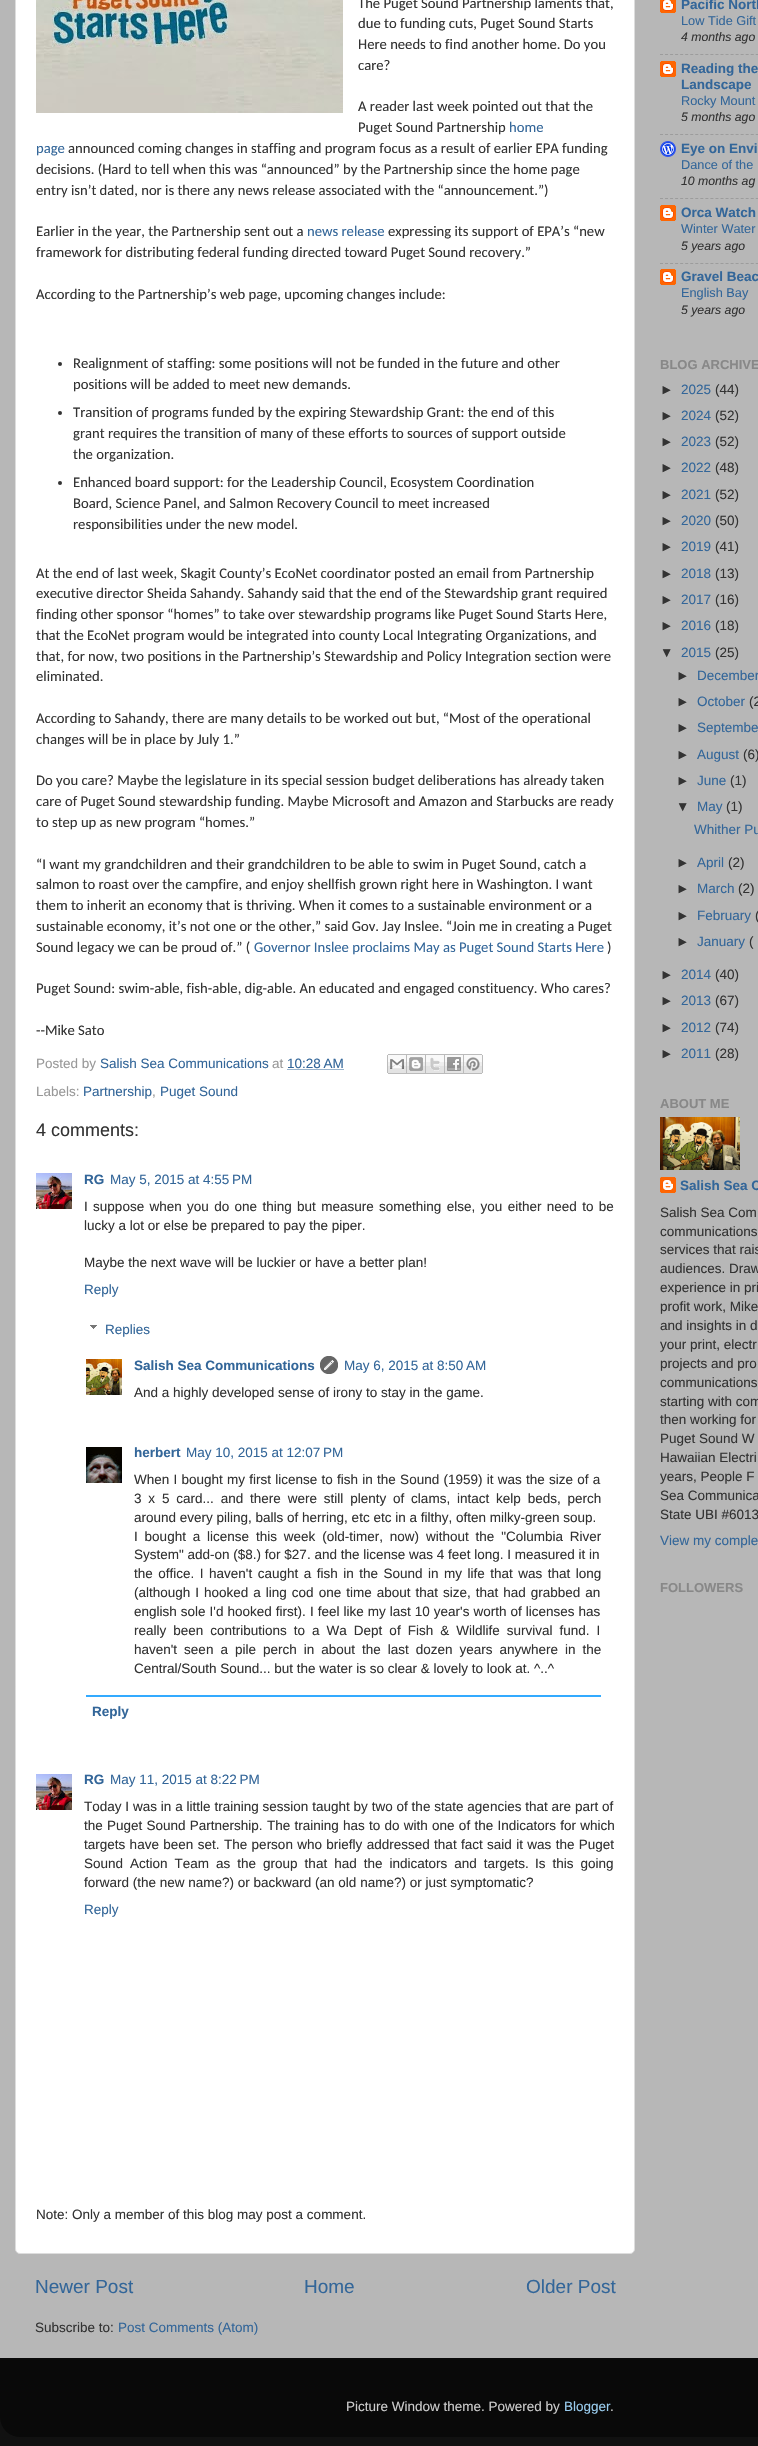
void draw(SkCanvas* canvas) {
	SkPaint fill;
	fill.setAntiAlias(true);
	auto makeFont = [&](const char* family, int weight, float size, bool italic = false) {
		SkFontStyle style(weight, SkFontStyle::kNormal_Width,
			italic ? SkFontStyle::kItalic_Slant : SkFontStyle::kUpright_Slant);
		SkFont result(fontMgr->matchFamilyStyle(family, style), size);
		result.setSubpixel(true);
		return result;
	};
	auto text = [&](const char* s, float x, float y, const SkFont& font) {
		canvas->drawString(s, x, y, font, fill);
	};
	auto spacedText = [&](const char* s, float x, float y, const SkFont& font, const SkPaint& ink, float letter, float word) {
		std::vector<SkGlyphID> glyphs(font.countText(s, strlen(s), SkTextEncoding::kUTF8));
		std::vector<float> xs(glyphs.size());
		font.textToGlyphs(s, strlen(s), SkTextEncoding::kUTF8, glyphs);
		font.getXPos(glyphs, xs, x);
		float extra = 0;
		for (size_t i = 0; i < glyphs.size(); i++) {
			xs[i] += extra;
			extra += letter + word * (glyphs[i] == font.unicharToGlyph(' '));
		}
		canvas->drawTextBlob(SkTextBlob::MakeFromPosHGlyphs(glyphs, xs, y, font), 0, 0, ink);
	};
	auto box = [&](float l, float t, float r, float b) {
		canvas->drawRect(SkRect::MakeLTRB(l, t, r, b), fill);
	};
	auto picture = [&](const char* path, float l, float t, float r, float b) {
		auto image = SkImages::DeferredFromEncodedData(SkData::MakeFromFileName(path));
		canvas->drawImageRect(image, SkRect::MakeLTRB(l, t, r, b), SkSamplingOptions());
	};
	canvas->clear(0xFF111111);
	fill.setColor(0xFFB7B7B7);
	box(0, 0, 758, 2358);
	fill.setColor(0xFFFFFFFF);
	canvas->drawRoundRect(SkRect::MakeLTRB(15.5f, -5.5f, 634.5f, 2253.5f), 4.5f, 4.5f, fill);
	fill.setStyle(SkPaint::kStroke_Style);
	fill.setStrokeWidth(1);
	fill.setColor(0xFFDDDDDD);
	canvas->drawRoundRect(SkRect::MakeLTRB(15.5f, -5.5f, 634.5f, 2253.5f), 4.5f, 4.5f, fill);
	picture("image0.png", 36, 0, 343, 113);
	fill.setStyle(SkPaint::kFill_Style);
	fill.setColor(0xFF333333);
	canvas->drawCircle(60, 364, 2, fill);
	canvas->drawCircle(60, 413, 2, fill);
	canvas->drawCircle(60, 483, 2, fill);
	fill.setStyle(SkPaint::kStroke_Style);
	fill.setColor(0xFF336699);
	fill.setPathEffect(SkDashPathEffect::Make({{1, 1}}, 0));
	canvas->drawPath(SkPathBuilder().moveTo(287.5f, 1069.5f).lineTo(344, 1069.5f).detach(), fill);
	fill.setPathEffect(nullptr);
	picture("image1.png", 387, 1054, 407, 1074);
	picture("image2.png", 407, 1054, 426, 1074);
	picture("image3.png", 426, 1054, 445, 1074);
	picture("image4.png", 445, 1054, 464, 1074);
	picture("image5.png", 464, 1054, 483, 1074);
	picture("image6.png", 36, 1173, 72, 1209);
	picture("image7.png", 90, 1325, 97, 1329);
	picture("image8.png", 86, 1359, 122, 1395);
	picture("image9.png", 320, 1356, 338, 1374);
	picture("image10.png", 86, 1447, 122, 1483);
	fill.setStyle(SkPaint::kFill_Style);
	fill.setColor(0xFF33AAFF);
	box(86, 1695, 601, 1697);
	picture("image6.png", 36, 1774, 72, 1810);
	picture("image11.png", 660, 0, 676, 13);
	fill.setStyle(SkPaint::kStroke_Style);
	fill.setColor(0xFF9C9C9C);
	fill.setPathEffect(SkDashPathEffect::Make({{3, 2.04f}}, 0));
	canvas->drawPath(SkPathBuilder().moveTo(660, 54.5f).lineTo(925, 54.5f).detach(), fill);
	fill.setPathEffect(nullptr);
	picture("image12.png", 660, 61, 676, 77);
	fill.setPathEffect(SkDashPathEffect::Make({{3, 2.04f}}, 0));
	canvas->drawPath(SkPathBuilder().moveTo(660, 134.5f).lineTo(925, 134.5f).detach(), fill);
	fill.setPathEffect(nullptr);
	picture("image13.png", 660, 141, 676, 157);
	fill.setPathEffect(SkDashPathEffect::Make({{3, 2.04f}}, 0));
	canvas->drawPath(SkPathBuilder().moveTo(660, 198.5f).lineTo(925, 198.5f).detach(), fill);
	fill.setPathEffect(nullptr);
	picture("image12.png", 660, 205, 676, 221);
	fill.setPathEffect(SkDashPathEffect::Make({{3, 2.04f}}, 0));
	canvas->drawPath(SkPathBuilder().moveTo(660, 263.5f).lineTo(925, 263.5f).detach(), fill);
	fill.setPathEffect(nullptr);
	picture("image12.png", 660, 269, 676, 285);
	picture("image14.png", 660, 1117, 740, 1170);
	picture("image15.png", 660, 1177, 676, 1193);
	picture("image16.png", 0, 2358, 758, 2437);
	auto font1 = makeFont("Carlito", 400, 14.65f);
	fill.setStyle(SkPaint::kFill_Style);
	fill.setColor(0xFF333333);
	text("The Puget Sound Partnership laments that,", 358, 8, font1);
	text("due to funding cuts, Puget Sound Starts", 358, 28, font1);
	text("Here needs to find another home. Do you", 358, 49, font1);
	text("care?", 358, 70, font1);
	text("A reader last week pointed out that the", 358, 111, font1);
	text("Puget Sound Partnership", 358, 132, font1);
	fill.setColor(0xFF336699);
	text("home", 509, 132, font1);
	text("page", 36, 153, font1);
	fill.setColor(0xFF333333);
	text("announced coming changes in staffing and program focus as a result of earlier EPA funding", 68, 153, font1);
	text("decisions. (Hard to tell when this was “announced” by the Partnership since the home page", 36, 174, font1);
	text("entry isn’t dated, nor is there any news release associated with the “announcement.”)", 36, 195, font1);
	text("Earlier in the year, the Partnership sent out a", 36, 236, font1);
	fill.setColor(0xFF336699);
	text("news release", 307, 236, font1);
	fill.setColor(0xFF333333);
	text("expressing its support of EPA’s “new", 388, 236, font1);
	text("framework for distributing federal funding directed toward Puget Sound recovery.”", 36, 257, font1);
	text("According to the Partnership’s web page, upcoming changes include:", 36, 299, font1);
	text("Realignment of staffing: some positions will not be funded in the future and other", 73, 368, font1);
	text("positions will be added to meet new demands.", 73, 389, font1);
	text("Transition of programs funded by the expiring Stewardship Grant: the end of this", 73, 417, font1);
	text("grant requires the transition of many of these efforts to sources of support outside", 73, 438, font1);
	text("the organization.", 73, 459, font1);
	text("Enhanced board support: for the Leadership Council, Ecosystem Coordination", 73, 487, font1);
	text("Board, Science Panel, and Salmon Recovery Council to meet increased", 73, 508, font1);
	text("responsibilities under the new model.", 73, 529, font1);
	text("At the end of last week, Skagit County’s EcoNet coordinator posted an email from Partnership", 36, 578, font1);
	text("executive director Sheida Sahandy. Sahandy said that the end of the Stewardship grant required", 36, 598, font1);
	text("finding other sponsor “homes” to take over stewardship programs like Puget Sound Starts Here,", 36, 619, font1);
	text("that the EcoNet program would be integrated into county Local Integrating Organizations, and", 36, 640, font1);
	text("that, for now, two positions in the Partnership’s Stewardship and Policy Integration section were", 36, 661, font1);
	text("eliminated.", 36, 681, font1);
	text("According to Sahandy, there are many details to be worked out but, “Most of the operational", 36, 723, font1);
	text("changes will be in place by July 1.”", 36, 744, font1);
	text("Do you care? Maybe the legislature in its special session budget deliberations has already taken", 36, 785, font1);
	text("care of Puget Sound stewardship funding. Maybe Microsoft and Amazon and Starbucks are ready", 36, 806, font1);
	text("to step up as new program “homes.”", 36, 827, font1);
	text("“I want my grandchildren and their grandchildren to be able to swim in Puget Sound, catch a", 36, 869, font1);
	text("salmon to roast over the campfire, and enjoy shellfish grown right here in Washington. I want", 36, 889, font1);
	text("them to inherit an economy that is thriving. When it comes to a sustainable environment or a", 36, 910, font1);
	text("sustainable economy, it’s not one or the other,” said Gov. Jay Inslee. “Join me in creating a Puget", 36, 931, font1);
	text("Sound legacy we can be proud of.” (", 36, 952, font1);
	fill.setColor(0xFF336699);
	text("Governor Inslee proclaims May as Puget Sound Starts Here", 254, 952, font1);
	fill.setColor(0xFF333333);
	text(")", 607, 952, font1);
	text("Puget Sound: swim-able, fish-able, dig-able. An educated and engaged constituency. Who cares?", 36, 993, font1);
	text("--Mike Sato", 36, 1035, font1);
	auto font2 = makeFont("Liberation Sans", 400, 13.5f);
	fill.setColor(0xFF999999);
	text("Posted by", 36, 1068, font2);
	fill.setColor(0xFF336699);
	text("Salish Sea Communications", 100, 1068, font2);
	fill.setColor(0xFF999999);
	text("at", 272, 1068, font2);
	fill.setColor(0xFF336699);
	text("10:28 AM", 287, 1068, font2);
	fill.setColor(0xFF999999);
	text("Labels:", 36, 1096, font2);
	fill.setColor(0xFF336699);
	text("Partnership", 83, 1096, font2);
	fill.setColor(0xFF999999);
	text(",", 152, 1096, font2);
	fill.setColor(0xFF336699);
	text("Puget Sound", 160, 1096, font2);
	auto font3 = makeFont("Liberation Sans", 400, 18);
	fill.setColor(0xFF333333);
	text("4 comments:", 36, 1136, font3);
	auto font4 = makeFont("Liberation Sans", 700, 13.5f);
	fill.setColor(0xFF336699);
	text("RG", 84, 1184, font4);
	text("May 5, 2015 at 4:55 PM", 110, 1184, font2);
	fill.setColor(0xFF333333);
	spacedText("I suppose when you do one thing but measure something else, you either need to be", 84, 1211, font2, fill, 0, 1.6f);
	text("lucky a lot or else be prepared to pay the piper.", 84, 1230, font2);
	text("Maybe the next wave will be luckier or have a better plan!", 84, 1267, font2);
	fill.setColor(0xFF336699);
	text("Reply", 84, 1294, font2);
	text("Replies", 105, 1334, font2);
	text("Salish Sea Communications", 134, 1370, font4);
	text("May 6, 2015 at 8:50 AM", 344, 1370, font2);
	fill.setColor(0xFF333333);
	text("And a highly developed sense of irony to stay in the game.", 134, 1397, font2);
	fill.setColor(0xFF336699);
	text("herbert", 134, 1457, font4);
	text("May 10, 2015 at 12:07 PM", 186, 1457, font2);
	fill.setColor(0xFF333333);
	spacedText("When I bought my first license to fish in the Sound (1959) it was the size of a", 134, 1484, font2, fill, 0, 0.5f);
	spacedText("3 x 5 card... and there were still plenty of clams, intact kelp beds, perch", 134, 1503, font2, fill, 0, 3.1f);
	text("around every piling, balls of herring, etc etc in a filthy, often milky-green soup.", 134, 1522, font2);
	spacedText("I bought a license this week (old-timer, now) without the \"Columbia River", 134, 1541, font2, fill, 0, 3.1f);
	text("System\" add-on ($8.) for $27. and the license was 4 feet long. I measured it in", 134, 1559, font2);
	spacedText("the office. I haven't caught a fish in the Sound in my life that was that long", 134, 1578, font2, fill, 0, 1.75f);
	spacedText("(although I hooked a ling cod one time about that size, that had grabbed an", 134, 1597, font2, fill, 0, 1.25f);
	spacedText("english sole I'd hooked first).", 134, 1616, font2, fill, 0, 0.25f);
	spacedText("I feel like my last 10 year's worth of licenses has", 310, 1616, font2, fill, 0, 0.25f);
	spacedText("really been contributions to a Wa Dept of Fish & Wildlife survival fund. I", 134, 1635, font2, fill, 0, 3.25f);
	spacedText("haven't seen a pile perch in about the last dozen years anywhere in the", 134, 1654, font2, fill, 0, 3.25f);
	text("Central/South Sound... but the water is so clear & lovely to look at. ^..^", 134, 1673, font2);
	fill.setColor(0xFF336699);
	text("Reply", 92, 1716, font4);
	text("RG", 84, 1784, font4);
	text("May 11, 2015 at 8:22 PM", 110, 1784, font2);
	fill.setColor(0xFF333333);
	spacedText("Today I was in a little training session taught by two of the state agencies that are part of", 84, 1811, font2, fill, 0, 0.1f);
	spacedText("the Puget Sound Partnership.", 84, 1830, font2, fill, 0, 0.5f);
	spacedText("The training has to do with one of the Indicators for which", 267, 1830, font2, fill, 0, 0.5f);
	spacedText("targets have been set.", 84, 1849, font2, fill, 0, 0.6f);
	spacedText("The person who briefly addressed that fact said it was the Puget", 224, 1849, font2, fill, 0, 0.6f);
	spacedText("Sound Action Team as the group that had the indicators and targets.", 84, 1868, font2, fill, 0, 3.25f);
	spacedText("Is this going", 535, 1868, font2, fill, 0, 3.25f);
	text("forward (the new name?) or backward (an old name?) or just symptomatic?", 84, 1887, font2);
	fill.setColor(0xFF336699);
	text("Reply", 84, 1914, font2);
	fill.setColor(0xFF333333);
	text("Note: Only a member of this blog may post a comment.", 36, 2219, font2);
	auto font5 = makeFont("Liberation Sans", 400, 19);
	fill.setColor(0xFF336699);
	text("Newer Post", 35, 2293, font5);
	text("Home", 304, 2293, font5);
	text("Older Post", 526, 2293, font5);
	fill.setColor(0xFF333333);
	text("Subscribe to:", 35, 2332, font2);
	fill.setColor(0xFF336699);
	text("Post Comments (Atom)", 118, 2332, font2);
	text("Pacific North", 681, 9, font4);
	auto font6 = makeFont("Liberation Sans", 400, 12.75f);
	text("Low Tide Gift", 681, 25, font6);
	auto font7 = makeFont("Liberation Sans", 400, 12.25f, true);
	fill.setColor(0xFF333333);
	text("4 months ago", 681, 41, font7);
	fill.setColor(0xFF336699);
	text("Reading the", 681, 73, font4);
	text("Landscape", 681, 89, font4);
	text("Rocky Mount", 681, 105, font6);
	fill.setColor(0xFF333333);
	text("5 months ago", 681, 121, font7);
	fill.setColor(0xFF336699);
	text("Eye on Envi", 681, 153, font4);
	text("Dance of the", 681, 169, font6);
	fill.setColor(0xFF333333);
	text("10 months ag", 681, 185, font7);
	fill.setColor(0xFF336699);
	text("Orca Watch", 681, 217, font4);
	text("Winter Water", 681, 233, font6);
	fill.setColor(0xFF333333);
	text("5 years ago", 681, 250, font7);
	fill.setColor(0xFF336699);
	text("Gravel Beac", 681, 281, font4);
	text("English Bay", 681, 297, font6);
	fill.setColor(0xFF333333);
	text("5 years ago", 681, 314, font7);
	auto font8 = makeFont("Liberation Sans", 700, 13);
	fill.setColor(0xFF888888);
	text("BLOG ARCHIVE", 660, 369, font8);
	fill.setColor(0xFF333333);
	text("►", 660, 394, font2);
	fill.setColor(0xFF336699);
	text("2025", 681, 394, font2);
	fill.setColor(0xFF333333);
	text("(44)", 715, 394, font2);
	text("►", 660, 420, font2);
	fill.setColor(0xFF336699);
	text("2024", 681, 420, font2);
	fill.setColor(0xFF333333);
	text("(52)", 715, 420, font2);
	text("►", 660, 446, font2);
	fill.setColor(0xFF336699);
	text("2023", 681, 446, font2);
	fill.setColor(0xFF333333);
	text("(52)", 715, 446, font2);
	text("►", 660, 472, font2);
	fill.setColor(0xFF336699);
	text("2022", 681, 472, font2);
	fill.setColor(0xFF333333);
	text("(48)", 715, 472, font2);
	text("►", 660, 499, font2);
	fill.setColor(0xFF336699);
	text("2021", 681, 499, font2);
	fill.setColor(0xFF333333);
	text("(52)", 715, 499, font2);
	text("►", 660, 525, font2);
	fill.setColor(0xFF336699);
	text("2020", 681, 525, font2);
	fill.setColor(0xFF333333);
	text("(50)", 715, 525, font2);
	text("►", 660, 551, font2);
	fill.setColor(0xFF336699);
	text("2019", 681, 551, font2);
	fill.setColor(0xFF333333);
	text("(41)", 715, 551, font2);
	text("►", 660, 578, font2);
	fill.setColor(0xFF336699);
	text("2018", 681, 578, font2);
	fill.setColor(0xFF333333);
	text("(13)", 715, 578, font2);
	text("►", 660, 604, font2);
	fill.setColor(0xFF336699);
	text("2017", 681, 604, font2);
	fill.setColor(0xFF333333);
	text("(16)", 715, 604, font2);
	text("►", 660, 630, font2);
	fill.setColor(0xFF336699);
	text("2016", 681, 630, font2);
	fill.setColor(0xFF333333);
	text("(18)", 715, 630, font2);
	text("▼", 660, 657, font2);
	fill.setColor(0xFF336699);
	text("2015", 681, 657, font2);
	fill.setColor(0xFF333333);
	text("(25)", 715, 657, font2);
	text("►", 676, 680, font2);
	fill.setColor(0xFF336699);
	text("December", 697, 680, font2);
	fill.setColor(0xFF333333);
	text("►", 676, 706, font2);
	fill.setColor(0xFF336699);
	text("October", 697, 706, font2);
	fill.setColor(0xFF333333);
	text("(2", 749, 706, font2);
	text("►", 676, 732, font2);
	fill.setColor(0xFF336699);
	text("Septembe", 697, 732, font2);
	fill.setColor(0xFF333333);
	text("►", 676, 759, font2);
	fill.setColor(0xFF336699);
	text("August", 697, 759, font2);
	fill.setColor(0xFF333333);
	text("(6)", 743, 759, font2);
	text("►", 676, 785, font2);
	fill.setColor(0xFF336699);
	text("June", 697, 785, font2);
	fill.setColor(0xFF333333);
	text("(1)", 730, 785, font2);
	text("▼", 676, 811, font2);
	fill.setColor(0xFF336699);
	text("May", 697, 811, font2);
	fill.setColor(0xFF333333);
	text("(1)", 726, 811, font2);
	fill.setColor(0xFF336699);
	text("Whither Pu", 694, 834, font2);
	fill.setColor(0xFF333333);
	text("►", 676, 867, font2);
	fill.setColor(0xFF336699);
	text("April", 697, 867, font2);
	fill.setColor(0xFF333333);
	text("(2)", 728, 867, font2);
	text("►", 676, 893, font2);
	fill.setColor(0xFF336699);
	text("March", 697, 893, font2);
	fill.setColor(0xFF333333);
	text("(2)", 738, 893, font2);
	text("►", 676, 920, font2);
	fill.setColor(0xFF336699);
	text("February", 697, 920, font2);
	fill.setColor(0xFF333333);
	text("(", 755, 920, font2);
	text("►", 676, 946, font2);
	fill.setColor(0xFF336699);
	text("January", 697, 946, font2);
	fill.setColor(0xFF333333);
	text("(", 749, 946, font2);
	text("►", 660, 979, font2);
	fill.setColor(0xFF336699);
	text("2014", 681, 979, font2);
	fill.setColor(0xFF333333);
	text("(40)", 715, 979, font2);
	text("►", 660, 1005, font2);
	fill.setColor(0xFF336699);
	text("2013", 681, 1005, font2);
	fill.setColor(0xFF333333);
	text("(67)", 715, 1005, font2);
	text("►", 660, 1032, font2);
	fill.setColor(0xFF336699);
	text("2012", 681, 1032, font2);
	fill.setColor(0xFF333333);
	text("(74)", 715, 1032, font2);
	text("►", 660, 1058, font2);
	fill.setColor(0xFF336699);
	text("2011", 681, 1058, font2);
	fill.setColor(0xFF333333);
	text("(28)", 715, 1058, font2);
	fill.setColor(0xFF888888);
	text("ABOUT ME", 660, 1108, font8);
	fill.setColor(0xFF336699);
	text("Salish Sea C", 680, 1190, font4);
	fill.setColor(0xFF333333);
	text("Salish Sea Com", 660, 1217, font2);
	text("communications", 660, 1236, font2);
	text("services that rais", 660, 1254, font2);
	text("audiences. Draw", 660, 1273, font2);
	text("experience in pri", 660, 1292, font2);
	text("profit work, Mike", 660, 1311, font2);
	text("and insights in d", 660, 1330, font2);
	text("your print, electr", 660, 1349, font2);
	text("projects and pro", 660, 1368, font2);
	text("communications", 660, 1387, font2);
	text("starting with com", 660, 1406, font2);
	text("then working for", 660, 1424, font2);
	text("Puget Sound W", 660, 1443, font2);
	text("Hawaiian Electri", 660, 1462, font2);
	text("years, People F", 660, 1481, font2);
	text("Sea Communica", 660, 1500, font2);
	text("State UBI #6013", 660, 1519, font2);
	fill.setColor(0xFF336699);
	text("View my comple", 660, 1545, font2);
	fill.setColor(0xFF888888);
	text("FOLLOWERS", 660, 1592, font8);
	fill.setColor(0xFFCCCCCC);
	text("Picture Window theme. Powered by", 346, 2411, font2);
	fill.setColor(0xFF99CCEE);
	text("Blogger", 564, 2411, font2);
	fill.setColor(0xFFCCCCCC);
	text(".", 610, 2411, font2);
}
